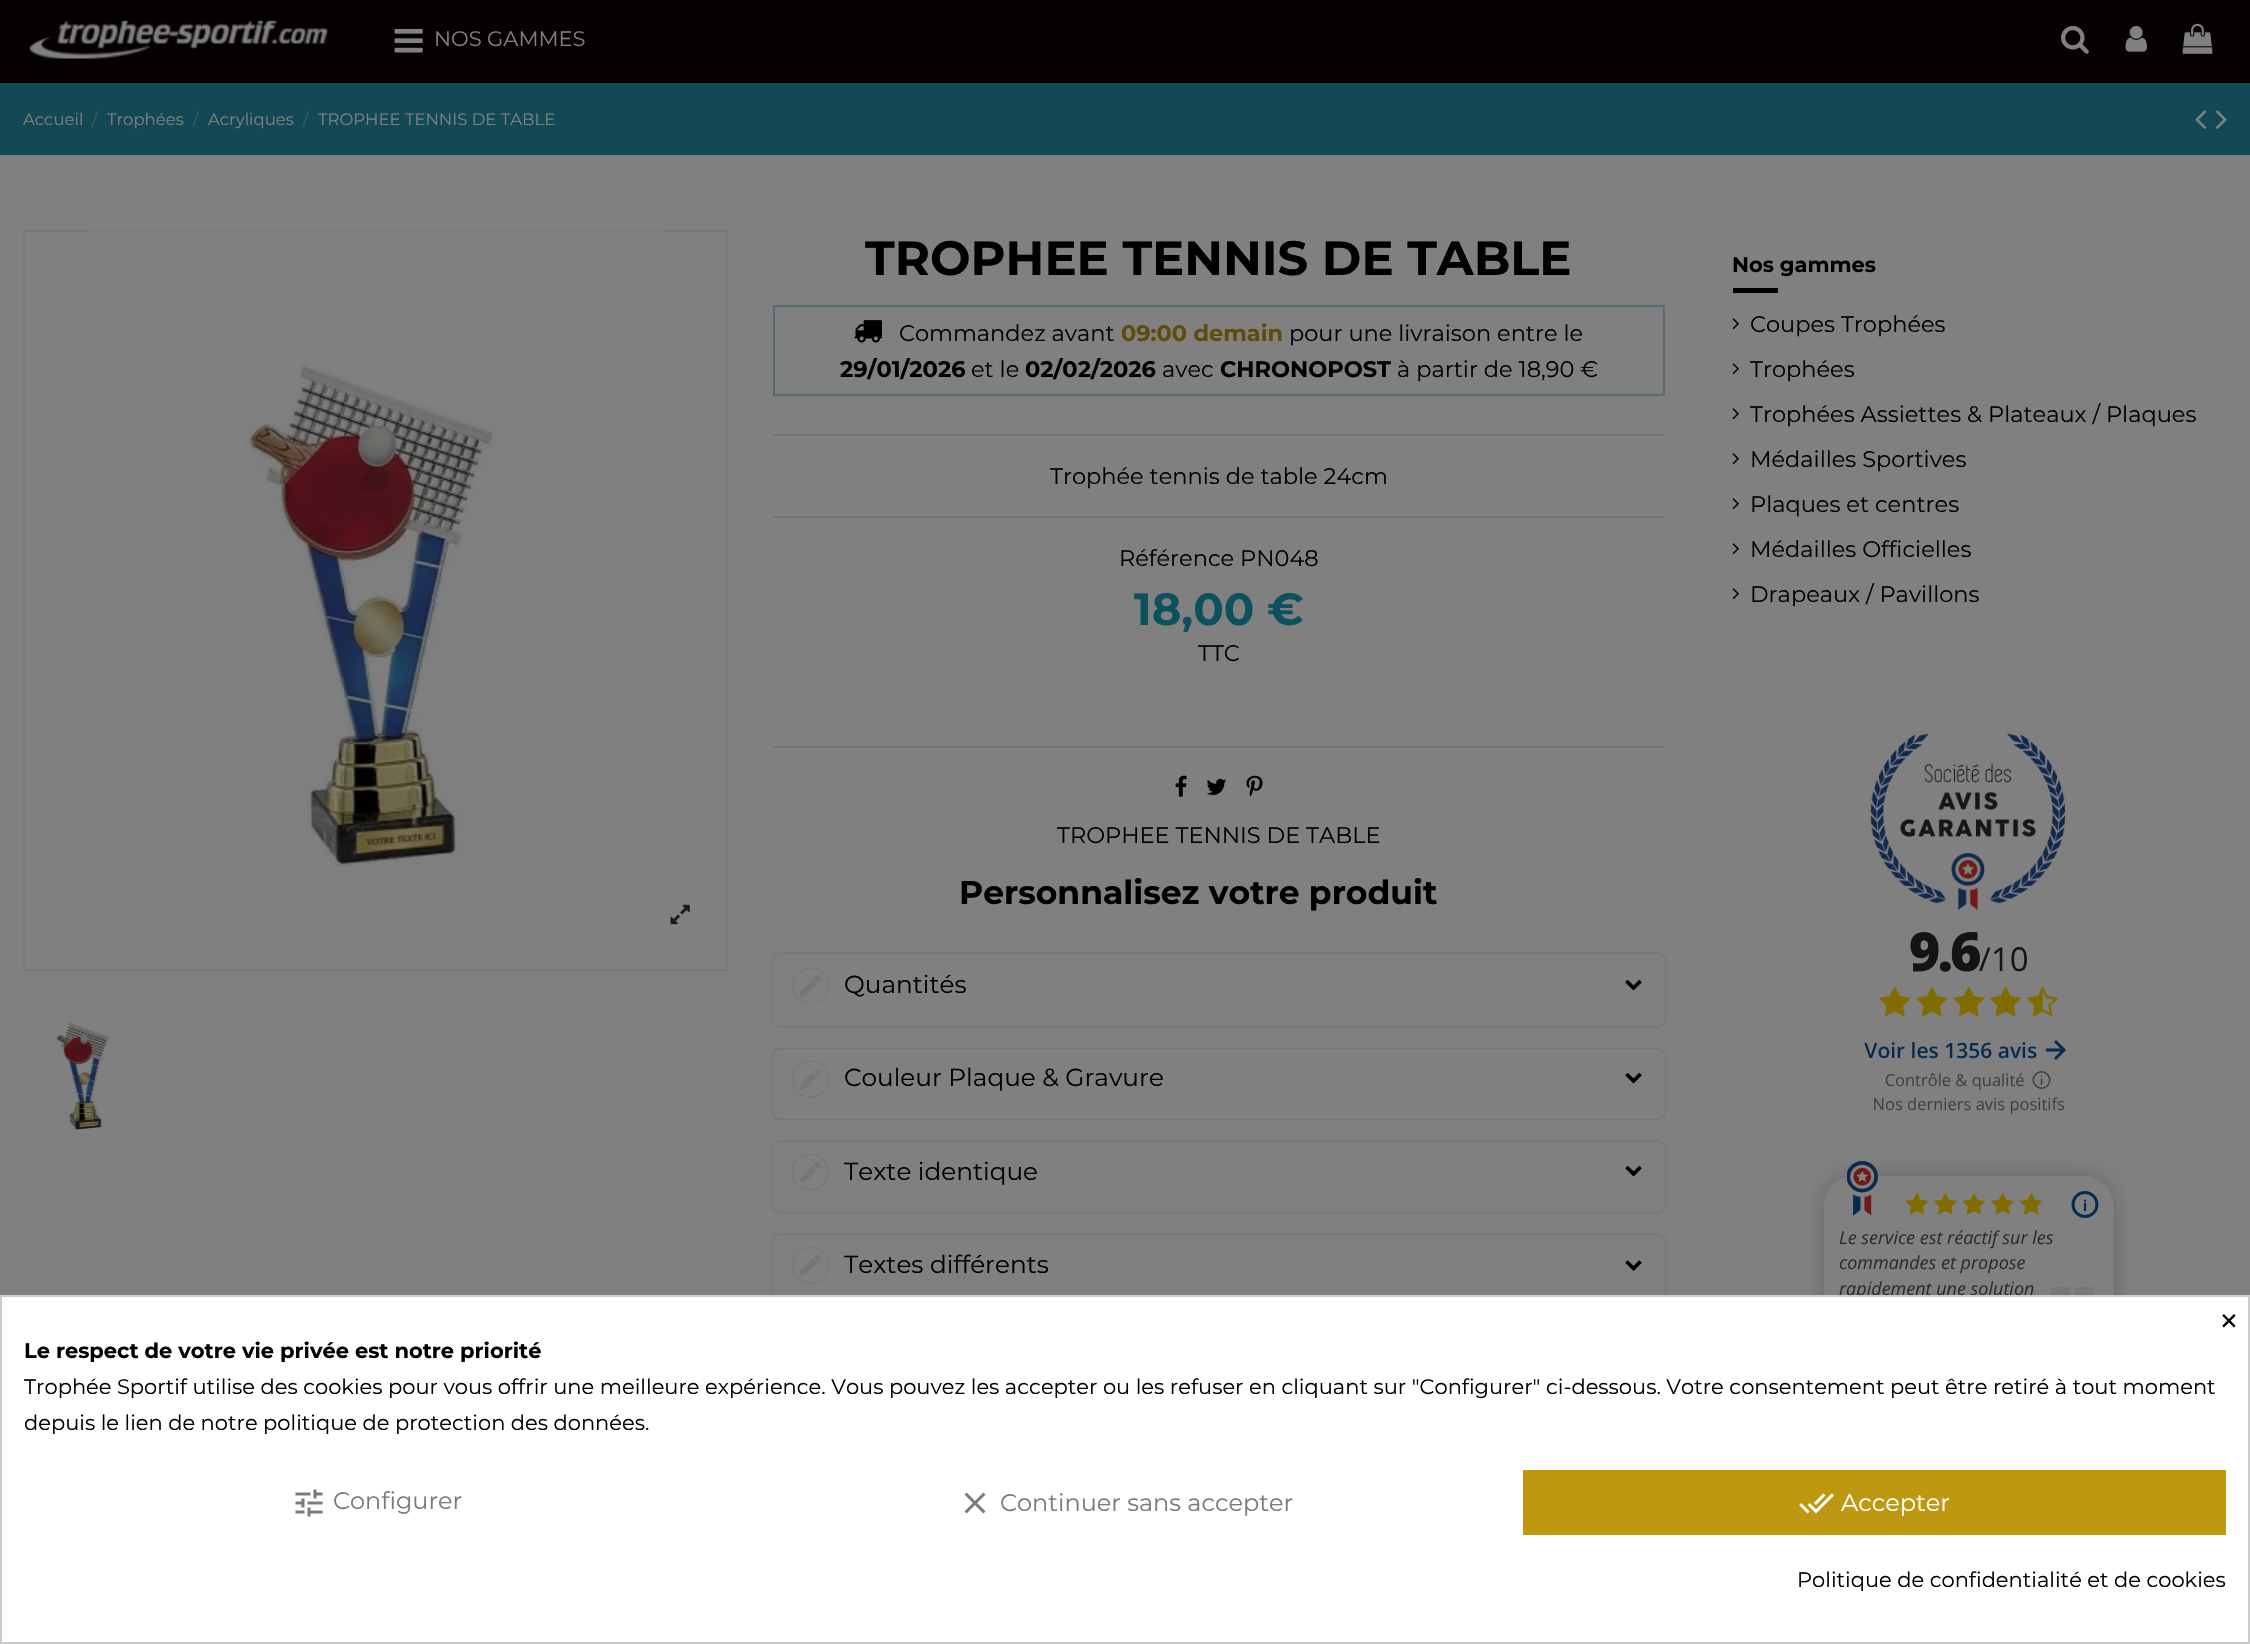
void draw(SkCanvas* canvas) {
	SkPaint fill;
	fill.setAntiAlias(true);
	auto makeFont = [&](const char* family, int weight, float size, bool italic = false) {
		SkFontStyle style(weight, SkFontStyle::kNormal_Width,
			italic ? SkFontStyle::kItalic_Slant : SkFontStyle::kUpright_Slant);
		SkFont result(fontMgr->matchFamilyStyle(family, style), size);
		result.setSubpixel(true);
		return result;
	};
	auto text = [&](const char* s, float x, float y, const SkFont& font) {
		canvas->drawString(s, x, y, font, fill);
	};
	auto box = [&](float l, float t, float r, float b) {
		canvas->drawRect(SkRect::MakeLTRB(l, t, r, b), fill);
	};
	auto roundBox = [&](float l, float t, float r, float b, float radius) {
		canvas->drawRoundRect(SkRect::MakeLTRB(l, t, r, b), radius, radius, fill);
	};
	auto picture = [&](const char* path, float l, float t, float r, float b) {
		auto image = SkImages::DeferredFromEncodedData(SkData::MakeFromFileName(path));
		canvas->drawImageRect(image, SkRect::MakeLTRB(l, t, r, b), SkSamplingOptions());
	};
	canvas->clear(0xFF808080);
	fill.setColor(0xFF050101);
	box(0, 0, 2250, 83);
	picture("image0.png", 29, 20, 328, 59);
	picture("image1.png", 394, 28, 423, 53);
	picture("image2.png", 2061, 25, 2089, 54);
	picture("image3.png", 2125, 25, 2147, 52);
	picture("image4.png", 2182, 23, 2213, 54);
	fill.setColor(0xFF134955);
	box(0, 83, 2250, 155);
	picture("image5.png", 2195, 110, 2207, 129);
	picture("image6.png", 2215, 110, 2227, 129);
	fill.setStyle(SkPaint::kStroke_Style);
	fill.setStrokeWidth(2);
	fill.setColor(0xFF7A7979);
	canvas->drawRect(SkRect::MakeLTRB(24, 231, 727, 970), fill);
	picture("image7.png", 90, 231, 662, 867);
	picture("image8.png", 670, 904, 690, 925);
	picture("image9.png", 56, 1022, 110, 1130);
	fill.setStyle(SkPaint::kFill_Style);
	fill.setColor(0xFF747474);
	box(773, 434, 1665, 436);
	fill.setStyle(SkPaint::kStroke_Style);
	fill.setColor(0xFF566C72);
	canvas->drawRect(SkRect::MakeLTRB(774, 306, 1664, 395), fill);
	picture("image10.png", 854, 320, 882, 343);
	fill.setStyle(SkPaint::kFill_Style);
	fill.setColor(0xFF747474);
	box(773, 516, 1665, 518);
	box(773, 746, 1665, 748);
	picture("image11.png", 1175, 775, 1187, 797);
	picture("image12.png", 1206, 778, 1227, 795);
	picture("image13.png", 1246, 775, 1263, 797);
	fill.setColor(0x33000000);
	fill.setMaskFilter(SkMaskFilter::MakeBlur(kNormal_SkBlurStyle, 1.5f));
	canvas->drawRoundRect(SkRect::MakeLTRB(773, 954, 1665, 1026), 8, 8, fill);
	fill.setMaskFilter(nullptr);
	fill.setColor(0xFF808080);
	roundBox(773, 954, 1665, 1026, 8);
	picture("image14.png", 792, 968, 829, 1004);
	picture("image15.png", 1625, 980, 1642, 991);
	fill.setColor(0x33000000);
	fill.setMaskFilter(SkMaskFilter::MakeBlur(kNormal_SkBlurStyle, 1.5f));
	canvas->drawRoundRect(SkRect::MakeLTRB(773, 1049, 1665, 1119), 8, 8, fill);
	fill.setMaskFilter(nullptr);
	fill.setColor(0xFF808080);
	roundBox(773, 1049, 1665, 1119, 8);
	picture("image16.png", 792, 1061, 829, 1098);
	picture("image15.png", 1625, 1073, 1642, 1084);
	fill.setColor(0x33000000);
	fill.setMaskFilter(SkMaskFilter::MakeBlur(kNormal_SkBlurStyle, 1.5f));
	canvas->drawRoundRect(SkRect::MakeLTRB(773, 1142, 1665, 1212), 8, 8, fill);
	fill.setMaskFilter(nullptr);
	fill.setColor(0xFF808080);
	roundBox(773, 1142, 1665, 1212, 8);
	picture("image16.png", 792, 1154, 829, 1191);
	picture("image15.png", 1625, 1166, 1642, 1177);
	fill.setColor(0x33000000);
	fill.setMaskFilter(SkMaskFilter::MakeBlur(kNormal_SkBlurStyle, 1.5f));
	canvas->drawRoundRect(SkRect::MakeLTRB(773, 1235, 1665, 1305), 8, 8, fill);
	fill.setMaskFilter(nullptr);
	fill.setColor(0xFF808080);
	roundBox(773, 1235, 1665, 1305, 8);
	picture("image16.png", 792, 1247, 829, 1284);
	picture("image17.png", 1625, 1260, 1642, 1271);
	fill.setColor(0xFF000000);
	box(1733, 288, 1778, 293);
	picture("image18.png", 1732, 318, 1739, 330);
	picture("image18.png", 1732, 363, 1739, 375);
	picture("image18.png", 1732, 408, 1739, 420);
	picture("image18.png", 1732, 453, 1739, 465);
	picture("image18.png", 1732, 498, 1739, 510);
	picture("image18.png", 1732, 543, 1739, 555);
	picture("image18.png", 1732, 588, 1739, 600);
	picture("image19.png", 1811, 733, 2127, 1295);
	fill.setColor(0xFFFFFFFF);
	canvas->drawRect(SkRect::MakeLTRB(1, 1296, 2249, 1643), fill);
	fill.setStyle(SkPaint::kStroke_Style);
	fill.setColor(0xFFCCCCCC);
	canvas->drawRect(SkRect::MakeLTRB(1, 1296, 2249, 1643), fill);
	picture("image20.png", 295, 1489, 323, 1517);
	picture("image21.png", 964, 1492, 986, 1514);
	fill.setStyle(SkPaint::kFill_Style);
	fill.setColor(0xFFBE9811);
	box(1523, 1470, 2226, 1535);
	picture("image22.png", 1799, 1493, 1834, 1514);
	auto font1 = makeFont("Montserrat", 400, 21);
	fill.setColor(0xFF808080);
	text("NOS GAMMES", 434, 46, font1);
	auto font2 = makeFont("Montserrat", 400, 16.5f);
	text("Accueil", 23, 125, font2);
	fill.setColor(0xFF3E5F66);
	text("/", 92, 125, font2);
	fill.setColor(0xFF808080);
	text("Trophées", 107, 125, font2);
	fill.setColor(0xFF3E5F66);
	text("/", 193, 125, font2);
	fill.setColor(0xFF808080);
	text("Acryliques", 208, 125, font2);
	fill.setColor(0xFF3E5F66);
	text("/", 303, 125, font2);
	fill.setColor(0xFF808080);
	text("TROPHEE TENNIS DE TABLE", 318, 125, font2);
	auto font3 = makeFont("Montserrat", 700, 48);
	fill.setColor(0xFF000000);
	text("TROPHEE TENNIS DE TABLE", 865, 275, font3);
	auto font4 = makeFont("Montserrat", 400, 22.5f);
	text("Commandez avant", 899, 341, font4);
	auto font5 = makeFont("Montserrat", 700, 22.5f);
	fill.setColor(0xFF5F4C09);
	text("09:00 demain", 1121, 341, font5);
	fill.setColor(0xFF000000);
	text("pour une livraison entre le", 1289, 341, font4);
	text("29/01/2026", 840, 377, font5);
	text("et le", 971, 377, font4);
	text("02/02/2026", 1025, 377, font5);
	text("avec", 1162, 377, font4);
	text("CHRONOPOST", 1220, 377, font5);
	text("à partir de 18,90 €", 1397, 377, font4);
	text("Trophée tennis de table 24cm", 1050, 484, font4);
	text("Référence PN048", 1119, 566, font4);
	auto font6 = makeFont("Montserrat", 700, 45);
	fill.setColor(0xFF0C515C);
	text("18,00 €", 1134, 625, font6);
	fill.setColor(0xFF000000);
	text("TTC", 1198, 661, font4);
	text("TROPHEE TENNIS DE TABLE", 1057, 843, font4);
	auto font7 = makeFont("Montserrat", 700, 33);
	text("Personnalisez votre produit", 959, 904, font7);
	auto font8 = makeFont("Montserrat", 400, 24.75f);
	text("Quantités", 844, 993, font8);
	text("Couleur Plaque & Gravure", 844, 1086, font8);
	text("Texte identique", 844, 1180, font8);
	text("Textes différents", 844, 1273, font8);
	auto font9 = makeFont("Montserrat", 700, 21);
	text("Nos gammes", 1732, 272, font9);
	text("Coupes Trophées", 1750, 332, font4);
	text("Trophées", 1750, 377, font4);
	text("Trophées Assiettes & Plateaux / Plaques", 1750, 422, font4);
	text("Médailles Sportives", 1750, 467, font4);
	text("Plaques et centres", 1750, 512, font4);
	text("Médailles Officielles", 1750, 557, font4);
	text("Drapeaux / Pavillons", 1750, 602, font4);
	auto font10 = makeFont("Montserrat", 400, 38);
	text("×", 2218, 1334, font10);
	text("Le respect de votre vie privée est notre priorité", 24, 1358, font9);
	text("Trophée Sportif utilise des cookies pour vous offrir une meilleure expérience. Vous pouvez les accepter ou les refuser en cliquant sur \"Configurer\" ci-dessous. Votre consentement peut être retiré à tout moment", 24, 1394, font1);
	text("depuis le lien de notre politique de protection des données.", 24, 1430, font1);
	auto font11 = makeFont("Montserrat", 400, 24);
	fill.setColor(0xFF7A7A7A);
	text("Configurer", 333, 1509, font11);
	text("Continuer sans accepter", 1000, 1511, font11);
	fill.setColor(0xFFFFFFFF);
	text("Accepter", 1841, 1511, font11);
	fill.setColor(0xFF000000);
	text("Politique de confidentialité et de cookies", 1797, 1587, font1);
}
